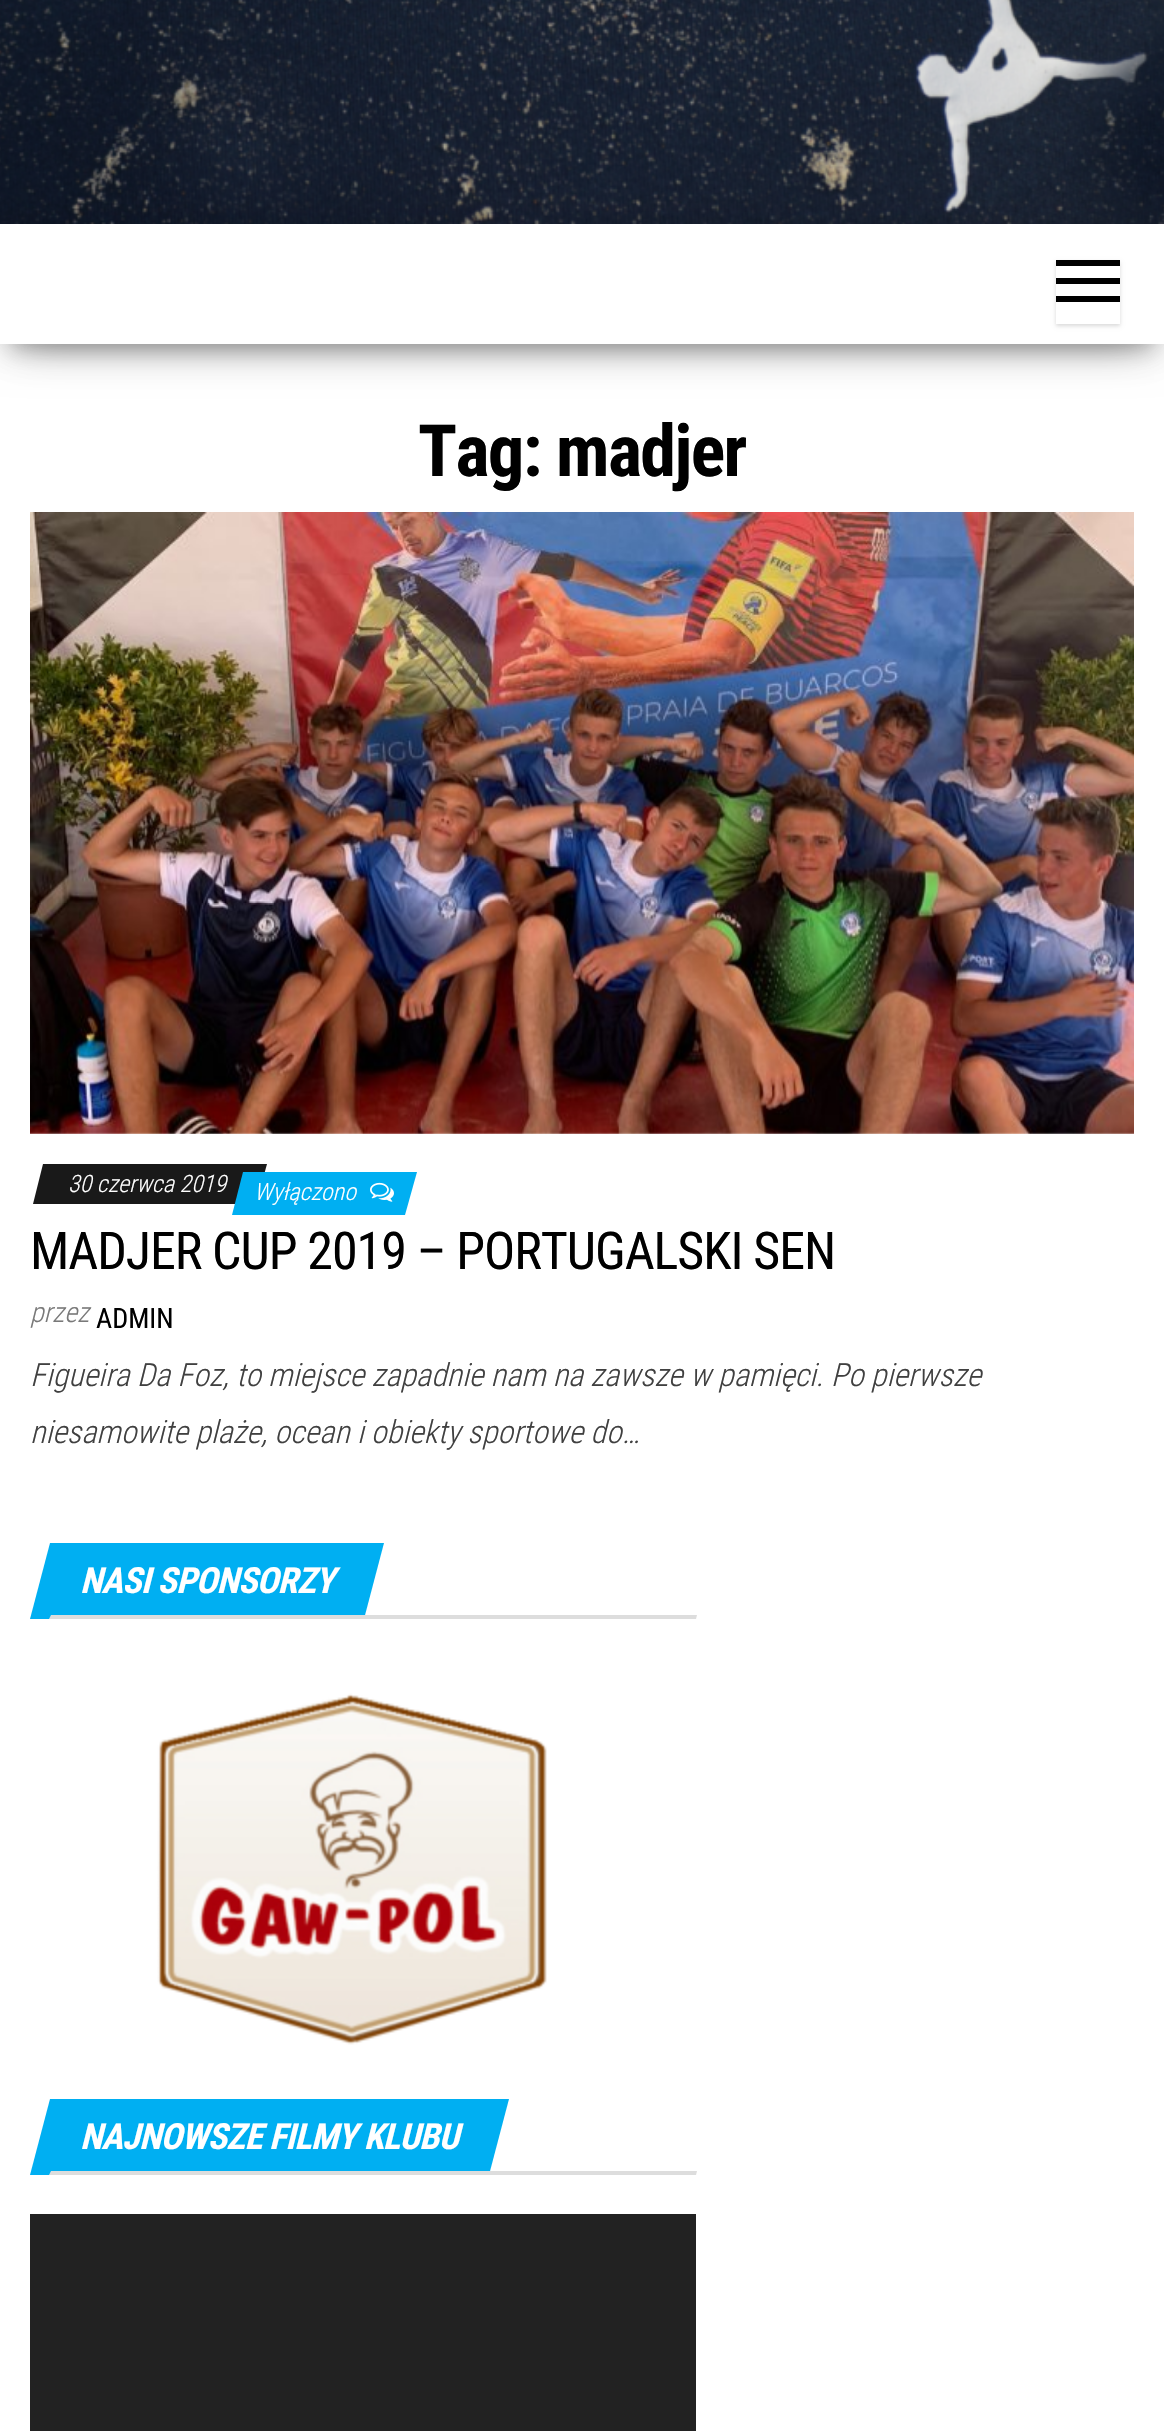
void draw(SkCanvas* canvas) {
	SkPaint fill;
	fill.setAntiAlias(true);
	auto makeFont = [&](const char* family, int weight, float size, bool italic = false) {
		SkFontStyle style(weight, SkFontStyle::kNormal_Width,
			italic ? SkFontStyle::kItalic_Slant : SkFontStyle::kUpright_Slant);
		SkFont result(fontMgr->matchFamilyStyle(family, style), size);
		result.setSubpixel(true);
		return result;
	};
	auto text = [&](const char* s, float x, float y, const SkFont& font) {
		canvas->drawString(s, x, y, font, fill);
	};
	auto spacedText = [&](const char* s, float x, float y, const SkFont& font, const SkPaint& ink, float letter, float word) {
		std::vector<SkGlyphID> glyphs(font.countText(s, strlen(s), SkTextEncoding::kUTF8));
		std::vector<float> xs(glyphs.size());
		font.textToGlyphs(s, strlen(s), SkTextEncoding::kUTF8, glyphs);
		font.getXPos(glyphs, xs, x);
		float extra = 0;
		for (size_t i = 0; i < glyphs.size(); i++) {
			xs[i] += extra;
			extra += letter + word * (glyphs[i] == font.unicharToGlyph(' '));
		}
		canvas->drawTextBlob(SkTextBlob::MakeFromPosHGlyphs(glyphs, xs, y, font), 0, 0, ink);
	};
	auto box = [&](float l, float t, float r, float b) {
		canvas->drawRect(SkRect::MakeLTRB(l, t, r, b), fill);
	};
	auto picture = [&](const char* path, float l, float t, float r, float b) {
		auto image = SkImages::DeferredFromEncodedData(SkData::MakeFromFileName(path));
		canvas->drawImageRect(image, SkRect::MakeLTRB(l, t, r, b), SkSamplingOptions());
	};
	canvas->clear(0xFFFFFFFF);
	picture("image0.png", 0, 0, 1164, 224);
	fill.setColor(0x33000000);
	fill.setMaskFilter(SkMaskFilter::MakeBlur(kNormal_SkBlurStyle, 10));
	canvas->drawRect(SkRect::MakeLTRB(10, 250, 1154, 350), fill);
	fill.setMaskFilter(nullptr);
	fill.setColor(0x1F000000);
	fill.setMaskFilter(SkMaskFilter::MakeBlur(kNormal_SkBlurStyle, 20));
	canvas->drawRect(SkRect::MakeLTRB(0, 230, 1164, 350), fill);
	fill.setMaskFilter(nullptr);
	fill.setColor(0x6B000000);
	fill.setMaskFilter(SkMaskFilter::MakeBlur(kNormal_SkBlurStyle, 20));
	canvas->drawRect(SkRect::MakeLTRB(24, 268, 1140, 340), fill);
	fill.setMaskFilter(nullptr);
	fill.setColor(0xFFFFFFFF);
	box(0, 224, 1164, 344);
	canvas->save();
	canvas->clipPath(SkPathBuilder(SkPathFillType::kEvenOdd).moveTo(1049, 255).lineTo(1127, 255).lineTo(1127, 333).lineTo(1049, 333).close().moveTo(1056, 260).lineTo(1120, 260).lineTo(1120, 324).lineTo(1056, 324).close().detach(), true);
	fill.setColor(0x26000000);
	fill.setMaskFilter(SkMaskFilter::MakeBlur(kNormal_SkBlurStyle, 2));
	canvas->drawRect(SkRect::MakeLTRB(1056, 262, 1120, 326), fill);
	fill.setMaskFilter(nullptr);
	canvas->restore();
	fill.setColor(0xFF000000);
	box(1056, 260, 1120, 266);
	box(1056, 278, 1120, 284);
	box(1056, 296, 1120, 302);
	picture("image1.png", 30, 512, 1134, 1134);
	fill.setColor(0xFF191919);
	canvas->drawPath(SkPathBuilder().moveTo(43, 1164).lineTo(267, 1164).lineTo(256, 1204).lineTo(33, 1204).close().detach(), fill);
	fill.setColor(0xFF00AFF2);
	canvas->drawPath(SkPathBuilder().moveTo(243, 1172).lineTo(417, 1172).lineTo(405, 1215).lineTo(232, 1215).close().detach(), fill);
	picture("image2.png", 370, 1182, 394, 1202);
	canvas->drawPath(SkPathBuilder().moveTo(50, 1543).lineTo(384, 1543).lineTo(364, 1619).lineTo(30, 1619).close().detach(), fill);
	fill.setColor(0xFFDDDDDD);
	canvas->drawPath(SkPathBuilder().moveTo(51, 1615).lineTo(697, 1615).lineTo(696, 1619).lineTo(49, 1619).close().detach(), fill);
	picture("image3.png", 157, 1693, 547, 2045);
	fill.setColor(0xFF00AFF2);
	canvas->drawPath(SkPathBuilder().moveTo(50, 2099).lineTo(509, 2099).lineTo(489, 2175).lineTo(30, 2175).close().detach(), fill);
	fill.setColor(0xFFDDDDDD);
	canvas->drawPath(SkPathBuilder().moveTo(51, 2171).lineTo(697, 2171).lineTo(696, 2175).lineTo(49, 2175).close().detach(), fill);
	fill.setColor(0xFF222222);
	box(30, 2214, 696, 2431);
	auto font1 = makeFont("Roboto Condensed", 700, 72);
	fill.setColor(0xFF000000);
	spacedText("Tag: madjer", 418, 476, font1, fill, -1.5f, 0);
	auto font2 = makeFont("Roboto Condensed", 300, 24, true);
	fill.setColor(0xFFFFFFFF);
	text("30 czerwca 2019", 68, 1192, font2);
	text("Wyłączono", 254, 1200, font2);
	auto font3 = makeFont("Roboto Condensed", 400, 52);
	fill.setColor(0xFF000000);
	spacedText("MADJER CUP 2019 – PORTUGALSKI SEN", 30, 1269, font3, fill, -1.05f, 0);
	auto font4 = makeFont("Roboto Condensed", 300, 28, true);
	fill.setColor(0xFF797979);
	text("przez", 30, 1322, font4);
	auto font5 = makeFont("Roboto Condensed", 400, 28);
	fill.setColor(0xFF000000);
	text("ADMIN", 96, 1328, font5);
	auto font6 = makeFont("Roboto Condensed", 300, 32, true);
	fill.setColor(0xFF404040);
	text("Figueira Da Foz, to miejsce zapadnie nam na zawsze w pamięci. Po pierwsze", 30, 1386, font6);
	text("niesamowite plaże, ocean i obiekty sportowe do…", 30, 1443, font6);
	auto font7 = makeFont("Roboto Condensed", 700, 36, true);
	fill.setColor(0xFFFFFFFF);
	spacedText("NASI SPONSORZY", 80, 1593, font7, fill, -0.75f, 0);
	spacedText("NAJNOWSZE FILMY KLUBU", 80, 2149, font7, fill, -0.75f, 0);
}
